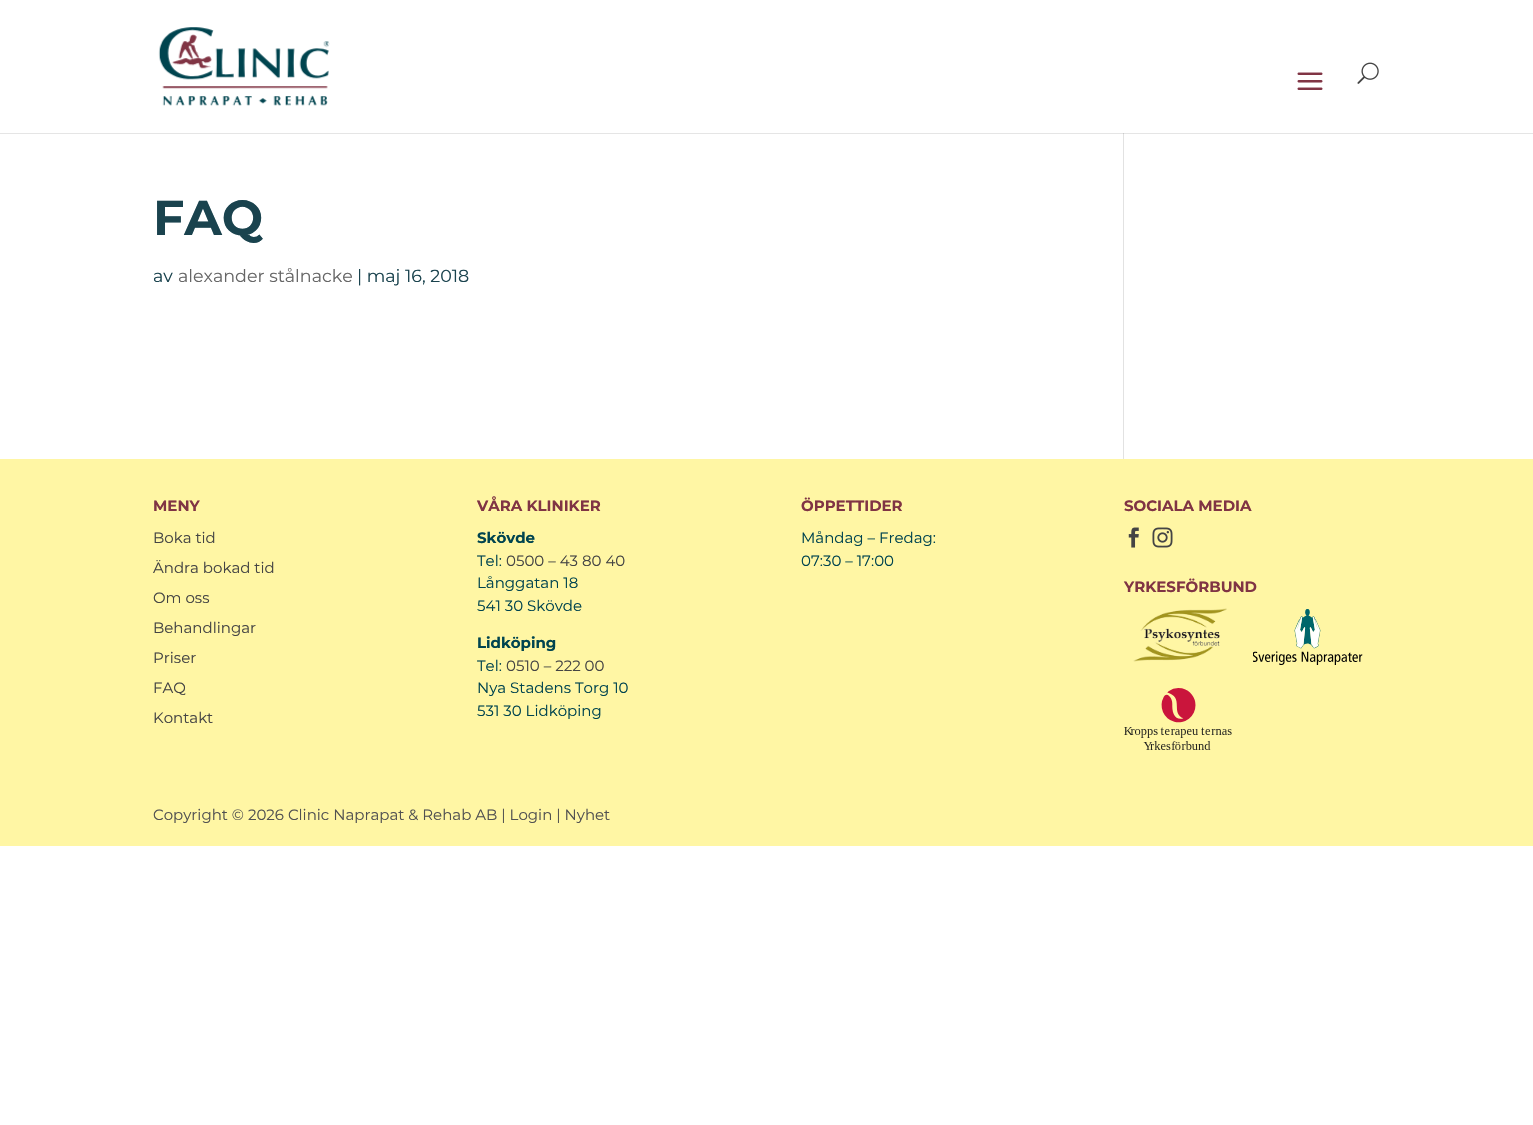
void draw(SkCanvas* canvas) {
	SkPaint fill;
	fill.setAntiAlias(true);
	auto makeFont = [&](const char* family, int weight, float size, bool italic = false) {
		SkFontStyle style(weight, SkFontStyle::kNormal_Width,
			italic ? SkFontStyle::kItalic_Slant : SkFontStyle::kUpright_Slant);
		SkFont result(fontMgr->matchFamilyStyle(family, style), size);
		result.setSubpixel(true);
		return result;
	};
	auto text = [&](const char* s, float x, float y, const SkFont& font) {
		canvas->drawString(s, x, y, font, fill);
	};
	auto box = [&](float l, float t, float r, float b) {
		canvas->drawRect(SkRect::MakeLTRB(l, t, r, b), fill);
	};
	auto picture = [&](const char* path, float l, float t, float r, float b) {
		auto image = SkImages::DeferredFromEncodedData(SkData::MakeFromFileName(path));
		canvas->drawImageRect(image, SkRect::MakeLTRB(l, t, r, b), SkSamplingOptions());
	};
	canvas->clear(0xFFFFFFFF);
	fill.setColor(0xFFE2E2E2);
	box(1123, 133, 1124, 459);
	fill.setColor(0x1A000000);
	canvas->drawPath(SkPathBuilder().moveTo(0, 132).lineTo(0, 134).lineTo(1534, 134).lineTo(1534, 1).lineTo(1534, 132).close().detach(), fill);
	fill.setColor(0xFFFFFFFF);
	box(0, 132, 1533, 133);
	picture("image0.png", 158, 27, 330, 106);
	picture("image1.png", 1297, 72, 1323, 90);
	picture("image2.png", 1357, 62, 1379, 84);
	fill.setColor(0xFFFFF6A4);
	box(0, 459, 1533, 846);
	picture("image3.png", 1128, 527, 1139, 548);
	picture("image4.png", 1152, 527, 1173, 548);
	picture("image5.png", 1133, 608, 1227, 662);
	picture("image6.png", 1253, 609, 1363, 665);
	picture("image7.png", 1124, 688, 1232, 750);
	auto font1 = makeFont("Montserrat", 100, 49);
	fill.setColor(0xFF1A434E);
	text("FAQ", 153, 235, font1);
	auto font2 = makeFont("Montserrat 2", 100, 17.5f);
	text("av", 153, 282, font2);
	fill.setColor(0xFF666666);
	text("alexander stålnacke", 178, 282, font2);
	fill.setColor(0xFF1A434E);
	text("| maj 16, 2018", 357, 282, font2);
	auto font3 = makeFont("Montserrat", 100, 15);
	fill.setColor(0xFF803444);
	text("MENY", 153, 511, font3);
	auto font4 = makeFont("Montserrat 2", 100, 15);
	fill.setColor(0xFF444444);
	text("Boka tid", 153, 543, font4);
	text("Ändra bokad tid", 153, 573, font4);
	text("Om oss", 153, 603, font4);
	text("Behandlingar", 153, 633, font4);
	text("Priser", 153, 663, font4);
	text("FAQ", 153, 693, font4);
	text("Kontakt", 153, 723, font4);
	fill.setColor(0xFF803444);
	text("VÅRA KLINIKER", 477, 511, font3);
	fill.setColor(0xFF00444F);
	text("Skövde", 477, 543, font3);
	text("Tel:", 477, 566, font4);
	fill.setColor(0xFF444444);
	text("0500 – 43 80 40", 506, 566, font4);
	fill.setColor(0xFF00444F);
	text("Långgatan 18", 477, 588, font4);
	text("541 30 Skövde", 477, 611, font4);
	text("Lidköping", 477, 648, font3);
	text("Tel:", 477, 671, font4);
	fill.setColor(0xFF444444);
	text("0510 – 222 00", 506, 671, font4);
	fill.setColor(0xFF00444F);
	text("Nya Stadens Torg 10", 477, 693, font4);
	text("531 30 Lidköping", 477, 716, font4);
	fill.setColor(0xFF803444);
	text("ÖPPETTIDER", 801, 511, font3);
	fill.setColor(0xFF00444F);
	text("Måndag – Fredag:", 801, 543, font4);
	text("07:30 – 17:00", 801, 566, font4);
	fill.setColor(0xFF803444);
	text("SOCIALA MEDIA", 1124, 511, font3);
	text("YRKESFÖRBUND", 1124, 592, font3);
	fill.setColor(0xFF515151);
	text("Copyright © 2026 Clinic Naprapat & Rehab AB | Login | Nyhet", 153, 820, font4);
}
